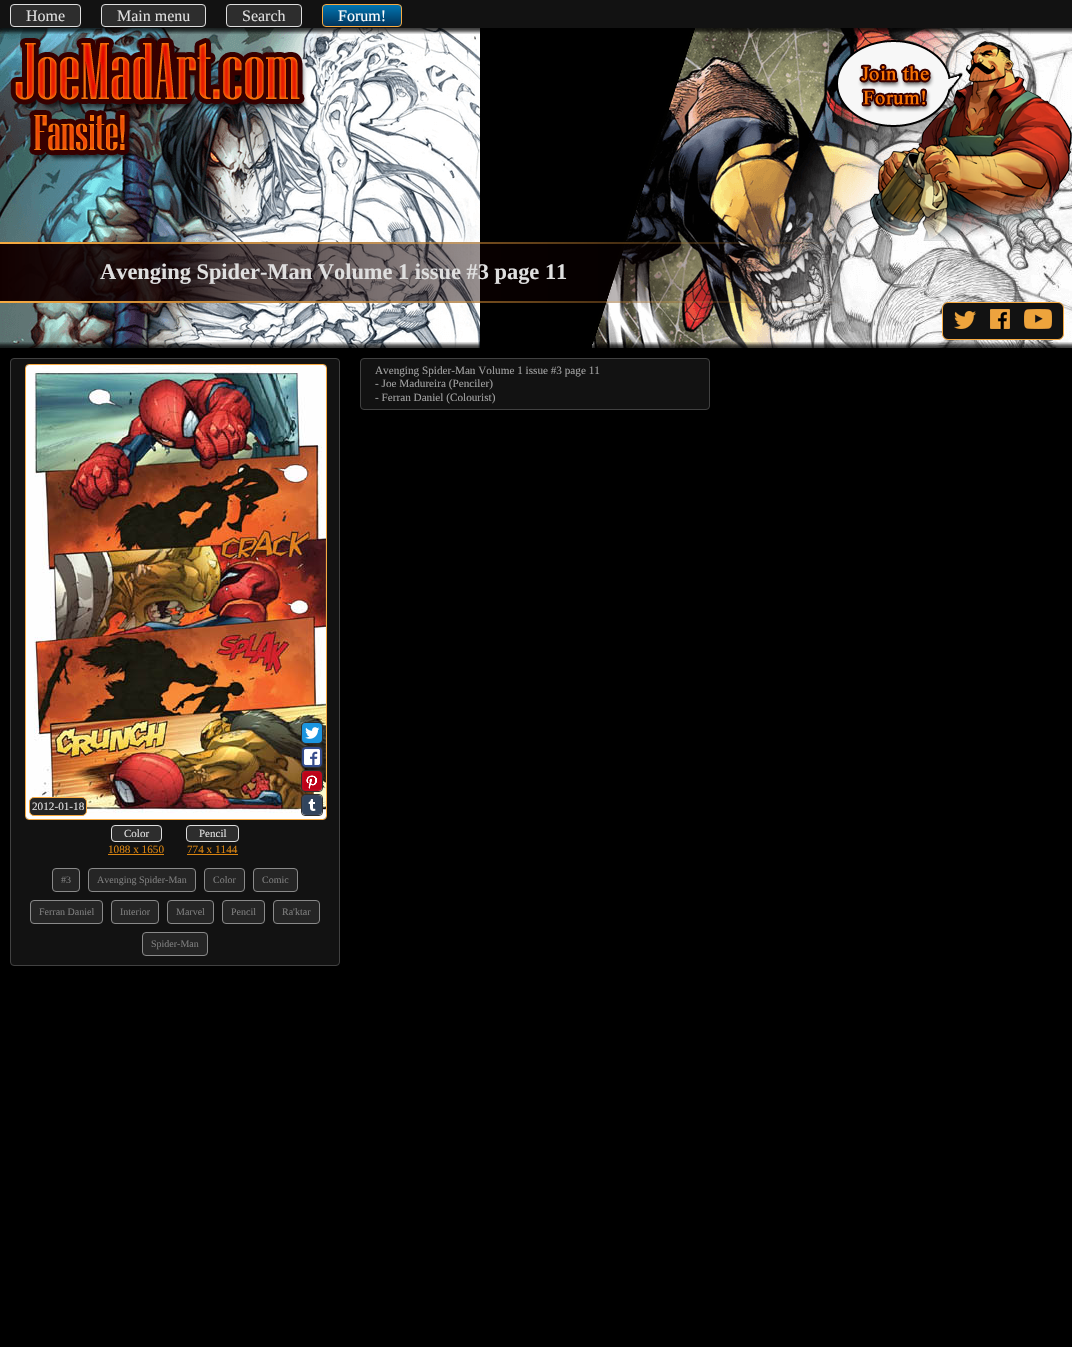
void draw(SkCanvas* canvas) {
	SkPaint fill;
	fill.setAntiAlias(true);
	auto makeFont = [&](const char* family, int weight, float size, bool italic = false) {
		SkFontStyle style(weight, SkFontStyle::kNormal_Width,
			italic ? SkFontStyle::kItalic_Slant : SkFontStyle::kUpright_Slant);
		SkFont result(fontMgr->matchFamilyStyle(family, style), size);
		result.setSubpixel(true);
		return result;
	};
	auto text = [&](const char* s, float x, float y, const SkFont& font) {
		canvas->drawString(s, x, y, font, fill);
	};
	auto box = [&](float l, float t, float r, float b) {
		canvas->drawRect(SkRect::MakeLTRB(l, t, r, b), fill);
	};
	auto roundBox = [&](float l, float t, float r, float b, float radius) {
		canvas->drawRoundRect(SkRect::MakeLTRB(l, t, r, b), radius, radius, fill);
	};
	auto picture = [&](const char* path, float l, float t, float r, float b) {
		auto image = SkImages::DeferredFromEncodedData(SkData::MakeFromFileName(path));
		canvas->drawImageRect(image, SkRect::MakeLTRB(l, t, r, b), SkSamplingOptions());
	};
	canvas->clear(0xFF000000);
	fill.setColor(0xFF121212);
	box(0, 0, 1072, 28);
	fill.setColor(0xFF2D2D2D);
	canvas->drawRoundRect(SkRect::MakeLTRB(10.5f, 4.5f, 80.5f, 26.5f), 3.5f, 3.5f, fill);
	fill.setStyle(SkPaint::kStroke_Style);
	fill.setStrokeWidth(1);
	fill.setColor(0xFFDFDFDF);
	canvas->drawRoundRect(SkRect::MakeLTRB(10.5f, 4.5f, 80.5f, 26.5f), 3.5f, 3.5f, fill);
	fill.setStyle(SkPaint::kFill_Style);
	fill.setColor(0xFF2D2D2D);
	canvas->drawRoundRect(SkRect::MakeLTRB(101.5f, 4.5f, 205.5f, 26.5f), 3.5f, 3.5f, fill);
	fill.setStyle(SkPaint::kStroke_Style);
	fill.setColor(0xFFDFDFDF);
	canvas->drawRoundRect(SkRect::MakeLTRB(101.5f, 4.5f, 205.5f, 26.5f), 3.5f, 3.5f, fill);
	fill.setStyle(SkPaint::kFill_Style);
	fill.setColor(0xFF2D2D2D);
	canvas->drawRoundRect(SkRect::MakeLTRB(226.5f, 4.5f, 301.5f, 26.5f), 3.5f, 3.5f, fill);
	fill.setStyle(SkPaint::kStroke_Style);
	fill.setColor(0xFFDFDFDF);
	canvas->drawRoundRect(SkRect::MakeLTRB(226.5f, 4.5f, 301.5f, 26.5f), 3.5f, 3.5f, fill);
	canvas->save();
	canvas->clipPath(SkPathBuilder().moveTo(326, 4).lineTo(398, 4).cubicTo(400, 4, 402, 6, 402, 8).lineTo(402, 23).cubicTo(402, 25, 400, 27, 398, 27).lineTo(326, 27).cubicTo(324, 27, 322, 25, 322, 23).lineTo(322, 8).cubicTo(322, 6, 324, 4, 326, 4).close().detach(), true);
	fill.setStyle(SkPaint::kFill_Style);
	{
		const SkColor colors[] = {0xFF0076B1, 0xFF02345C};
		const float stops[] = {0, 1};
		const SkPoint ends[] = {{362, 5}, {362, 26}};
		fill.setShader(SkGradientShader::MakeLinear(ends, colors, stops, 2, SkTileMode::kClamp));
		fill.setAlpha(255);
	}
	box(322, 5, 402, 26);
	canvas->restore();
	fill.setStyle(SkPaint::kStroke_Style);
	fill.setShader(nullptr);
	fill.setColor(0xFFF7AA41);
	canvas->drawRoundRect(SkRect::MakeLTRB(322.5f, 4.5f, 401.5f, 26.5f), 3.5f, 3.5f, fill);
	picture("image1.png", 0, 28, 1072, 348);
	picture("image0.png", 0, 28, 1072, 34);
	picture("image2.png", 10, 38, 308, 162);
	picture("image3.png", 836, 40, 1072, 241);
	fill.setStyle(SkPaint::kFill_Style);
	{
		const SkColor colors[] = {0xFF120000, 0x80120000, 0x00120000};
		const float stops[] = {0, 0.5f, 1};
		const SkPoint ends[] = {{0, 273}, {858, 273}};
		fill.setShader(SkGradientShader::MakeLinear(ends, colors, stops, 3, SkTileMode::kClamp));
		fill.setAlpha(255);
	}
	box(0, 242, 840, 303);
	{
		const SkColor colors[] = {0xFFF7AA41, 0x00F7AA41};
		const float stops[] = {0, 1};
		const SkPoint ends[] = {{0, 243}, {858, 243}};
		fill.setShader(SkGradientShader::MakeLinear(ends, colors, stops, 2, SkTileMode::kClamp));
		fill.setAlpha(255);
	}
	box(0, 242, 840, 244);
	{
		const SkColor colors[] = {0xFFF7AA41, 0x00F7AA41};
		const float stops[] = {0, 1};
		const SkPoint ends[] = {{0, 302}, {858, 302}};
		fill.setShader(SkGradientShader::MakeLinear(ends, colors, stops, 2, SkTileMode::kClamp));
		fill.setAlpha(255);
	}
	box(0, 301, 840, 303);
	fill.setShader(nullptr);
	fill.setColor(0xFF121212);
	canvas->drawRoundRect(SkRect::MakeLTRB(942.5f, 302.5f, 1063.5f, 339.5f), 5.5f, 5.5f, fill);
	fill.setStyle(SkPaint::kStroke_Style);
	fill.setColor(0xFFF7AA41);
	canvas->drawRoundRect(SkRect::MakeLTRB(942.5f, 302.5f, 1063.5f, 339.5f), 5.5f, 5.5f, fill);
	picture("image4.png", 954, 311, 976, 329);
	picture("image5.png", 990, 309, 1010, 329);
	picture("image6.png", 1024, 309, 1052, 329);
	fill.setStyle(SkPaint::kFill_Style);
	fill.setColor(0xFF121212);
	canvas->drawRoundRect(SkRect::MakeLTRB(360.5f, 358.5f, 709.5f, 409.5f), 3.5f, 3.5f, fill);
	fill.setStyle(SkPaint::kStroke_Style);
	fill.setColor(0xFF414141);
	canvas->drawRoundRect(SkRect::MakeLTRB(360.5f, 358.5f, 709.5f, 409.5f), 3.5f, 3.5f, fill);
	fill.setStyle(SkPaint::kFill_Style);
	fill.setColor(0xFF121212);
	canvas->drawRoundRect(SkRect::MakeLTRB(10.5f, 358.5f, 339.5f, 965.5f), 3.5f, 3.5f, fill);
	fill.setStyle(SkPaint::kStroke_Style);
	fill.setColor(0xFF414141);
	canvas->drawRoundRect(SkRect::MakeLTRB(10.5f, 358.5f, 339.5f, 965.5f), 3.5f, 3.5f, fill);
	fill.setColor(0xFFF7AA41);
	canvas->drawRoundRect(SkRect::MakeLTRB(25.5f, 364.5f, 326.5f, 819.5f), 3.5f, 3.5f, fill);
	picture("image7.png", 26, 365, 326, 819);
	fill.setStyle(SkPaint::kFill_Style);
	fill.setColor(0xFF252525);
	canvas->drawRoundRect(SkRect::MakeLTRB(29.5f, 797.5f, 86.5f, 815.5f), 4.5f, 4.5f, fill);
	fill.setStyle(SkPaint::kStroke_Style);
	fill.setColor(0xFFF7AA41);
	canvas->drawRoundRect(SkRect::MakeLTRB(29.5f, 797.5f, 86.5f, 815.5f), 4.5f, 4.5f, fill);
	fill.setColor(0xFF2F2F2F);
	canvas->drawRoundRect(SkRect::MakeLTRB(301.5f, 722.5f, 322.5f, 743.5f), 3.5f, 3.5f, fill);
	fill.setStyle(SkPaint::kFill_Style);
	fill.setColor(0xFF1B95E0);
	roundBox(302, 723, 322, 743, 4);
	picture("image8.png", 305, 727, 320, 739);
	fill.setStyle(SkPaint::kStroke_Style);
	fill.setColor(0xFF2F2F2F);
	canvas->drawRoundRect(SkRect::MakeLTRB(301.5f, 746.5f, 322.5f, 767.5f), 3.5f, 3.5f, fill);
	fill.setStyle(SkPaint::kFill_Style);
	fill.setColor(0xFF354C8C);
	roundBox(302, 747, 322, 767, 4);
	picture("image9.png", 304, 749, 320, 765);
	fill.setStyle(SkPaint::kStroke_Style);
	fill.setColor(0xFF2F2F2F);
	canvas->drawRoundRect(SkRect::MakeLTRB(301.5f, 770.5f, 322.5f, 791.5f), 3.5f, 3.5f, fill);
	fill.setStyle(SkPaint::kFill_Style);
	fill.setColor(0xFFBD091E);
	roundBox(302, 771, 322, 791, 4);
	picture("image10.png", 304, 773, 320, 789);
	fill.setStyle(SkPaint::kStroke_Style);
	fill.setColor(0xFF2F2F2F);
	canvas->drawRoundRect(SkRect::MakeLTRB(301.5f, 794.5f, 322.5f, 815.5f), 3.5f, 3.5f, fill);
	fill.setStyle(SkPaint::kFill_Style);
	fill.setColor(0xFF36465D);
	roundBox(302, 795, 322, 815, 4);
	picture("image11.png", 304, 797, 320, 813);
	fill.setColor(0xFF2D2D2D);
	canvas->drawRoundRect(SkRect::MakeLTRB(111.5f, 825.5f, 161.5f, 841.5f), 3.5f, 3.5f, fill);
	fill.setStyle(SkPaint::kStroke_Style);
	fill.setColor(0xFFDFDFDF);
	canvas->drawRoundRect(SkRect::MakeLTRB(111.5f, 825.5f, 161.5f, 841.5f), 3.5f, 3.5f, fill);
	fill.setStyle(SkPaint::kFill_Style);
	fill.setColor(0xFFD98411);
	box(108, 854, 164, 855);
	fill.setColor(0xFF2D2D2D);
	canvas->drawRoundRect(SkRect::MakeLTRB(186.5f, 825.5f, 238.5f, 841.5f), 3.5f, 3.5f, fill);
	fill.setStyle(SkPaint::kStroke_Style);
	fill.setColor(0xFFDFDFDF);
	canvas->drawRoundRect(SkRect::MakeLTRB(186.5f, 825.5f, 238.5f, 841.5f), 3.5f, 3.5f, fill);
	fill.setStyle(SkPaint::kFill_Style);
	fill.setColor(0xFFD98411);
	box(187, 854, 238, 855);
	fill.setColor(0xFF252525);
	canvas->drawRoundRect(SkRect::MakeLTRB(52.5f, 868.5f, 79.5f, 891.5f), 3.5f, 3.5f, fill);
	fill.setStyle(SkPaint::kStroke_Style);
	fill.setColor(0xFF8A8A8A);
	canvas->drawRoundRect(SkRect::MakeLTRB(52.5f, 868.5f, 79.5f, 891.5f), 3.5f, 3.5f, fill);
	fill.setStyle(SkPaint::kFill_Style);
	fill.setColor(0xFF252525);
	canvas->drawRoundRect(SkRect::MakeLTRB(88.5f, 868.5f, 195.5f, 891.5f), 3.5f, 3.5f, fill);
	fill.setStyle(SkPaint::kStroke_Style);
	fill.setColor(0xFF8A8A8A);
	canvas->drawRoundRect(SkRect::MakeLTRB(88.5f, 868.5f, 195.5f, 891.5f), 3.5f, 3.5f, fill);
	fill.setStyle(SkPaint::kFill_Style);
	fill.setColor(0xFF252525);
	canvas->drawRoundRect(SkRect::MakeLTRB(204.5f, 868.5f, 244.5f, 891.5f), 3.5f, 3.5f, fill);
	fill.setStyle(SkPaint::kStroke_Style);
	fill.setColor(0xFF8A8A8A);
	canvas->drawRoundRect(SkRect::MakeLTRB(204.5f, 868.5f, 244.5f, 891.5f), 3.5f, 3.5f, fill);
	fill.setStyle(SkPaint::kFill_Style);
	fill.setColor(0xFF252525);
	canvas->drawRoundRect(SkRect::MakeLTRB(253.5f, 868.5f, 297.5f, 891.5f), 3.5f, 3.5f, fill);
	fill.setStyle(SkPaint::kStroke_Style);
	fill.setColor(0xFF8A8A8A);
	canvas->drawRoundRect(SkRect::MakeLTRB(253.5f, 868.5f, 297.5f, 891.5f), 3.5f, 3.5f, fill);
	fill.setStyle(SkPaint::kFill_Style);
	fill.setColor(0xFF252525);
	canvas->drawRoundRect(SkRect::MakeLTRB(30.5f, 900.5f, 102.5f, 923.5f), 3.5f, 3.5f, fill);
	fill.setStyle(SkPaint::kStroke_Style);
	fill.setColor(0xFF8A8A8A);
	canvas->drawRoundRect(SkRect::MakeLTRB(30.5f, 900.5f, 102.5f, 923.5f), 3.5f, 3.5f, fill);
	fill.setStyle(SkPaint::kFill_Style);
	fill.setColor(0xFF252525);
	canvas->drawRoundRect(SkRect::MakeLTRB(111.5f, 900.5f, 158.5f, 923.5f), 3.5f, 3.5f, fill);
	fill.setStyle(SkPaint::kStroke_Style);
	fill.setColor(0xFF8A8A8A);
	canvas->drawRoundRect(SkRect::MakeLTRB(111.5f, 900.5f, 158.5f, 923.5f), 3.5f, 3.5f, fill);
	fill.setStyle(SkPaint::kFill_Style);
	fill.setColor(0xFF252525);
	canvas->drawRoundRect(SkRect::MakeLTRB(167.5f, 900.5f, 213.5f, 923.5f), 3.5f, 3.5f, fill);
	fill.setStyle(SkPaint::kStroke_Style);
	fill.setColor(0xFF8A8A8A);
	canvas->drawRoundRect(SkRect::MakeLTRB(167.5f, 900.5f, 213.5f, 923.5f), 3.5f, 3.5f, fill);
	fill.setStyle(SkPaint::kFill_Style);
	fill.setColor(0xFF252525);
	canvas->drawRoundRect(SkRect::MakeLTRB(222.5f, 900.5f, 264.5f, 923.5f), 3.5f, 3.5f, fill);
	fill.setStyle(SkPaint::kStroke_Style);
	fill.setColor(0xFF8A8A8A);
	canvas->drawRoundRect(SkRect::MakeLTRB(222.5f, 900.5f, 264.5f, 923.5f), 3.5f, 3.5f, fill);
	fill.setStyle(SkPaint::kFill_Style);
	fill.setColor(0xFF252525);
	canvas->drawRoundRect(SkRect::MakeLTRB(273.5f, 900.5f, 319.5f, 923.5f), 3.5f, 3.5f, fill);
	fill.setStyle(SkPaint::kStroke_Style);
	fill.setColor(0xFF8A8A8A);
	canvas->drawRoundRect(SkRect::MakeLTRB(273.5f, 900.5f, 319.5f, 923.5f), 3.5f, 3.5f, fill);
	fill.setStyle(SkPaint::kFill_Style);
	fill.setColor(0xFF252525);
	canvas->drawRoundRect(SkRect::MakeLTRB(142.5f, 932.5f, 207.5f, 955.5f), 3.5f, 3.5f, fill);
	fill.setStyle(SkPaint::kStroke_Style);
	fill.setColor(0xFF8A8A8A);
	canvas->drawRoundRect(SkRect::MakeLTRB(142.5f, 932.5f, 207.5f, 955.5f), 3.5f, 3.5f, fill);
	auto font1 = makeFont("Liberation Serif", 400, 16);
	fill.setStyle(SkPaint::kFill_Style);
	fill.setColor(0xFFDFDFDF);
	text("Home", 26, 21, font1);
	text("Main menu", 117, 21, font1);
	text("Search", 242, 21, font1);
	fill.setColor(0xFFFFFFFF);
	text("Forum!", 338, 21, font1);
	auto font2 = makeFont("Liberation Serif", 700, 22.4f);
	fill.setColor(0xFFDFDFDF);
	text("Avenging Spider-Man Volume 1 issue #3 page 11", 100, 279, font2);
	auto font3 = makeFont("Liberation Serif", 400, 11.2f);
	fill.setColor(0xFFA0A0A0);
	text("Avenging Spider-Man Volume 1 issue #3 page 11", 375, 374, font3);
	text("- Joe Madureira (Penciler)", 375, 387, font3);
	text("- Ferran Daniel (Colourist)", 375, 401, font3);
	fill.setColor(0xFFDFDFDF);
	text("2012-01-18", 32, 810, font3);
	auto font4 = makeFont("Liberation Serif", 400, 11);
	text("Color", 124, 837, font4);
	fill.setColor(0xFFD98411);
	text("1088 x 1650", 108, 853, font3);
	fill.setColor(0xFFDFDFDF);
	text("Pencil", 199, 837, font4);
	fill.setColor(0xFFD98411);
	text("774 x 1144", 187, 853, font3);
	auto font5 = makeFont("Liberation Serif", 400, 10);
	fill.setColor(0xFF7D7D7D);
	text("#3", 61, 883, font5);
	text("Avenging Spider-Man", 97, 883, font5);
	text("Color", 213, 883, font5);
	text("Comic", 262, 883, font5);
	text("Ferran Daniel", 39, 915, font5);
	text("Interior", 120, 915, font5);
	text("Marvel", 176, 915, font5);
	text("Pencil", 231, 915, font5);
	text("Ra'ktar", 282, 915, font5);
	text("Spider-Man", 151, 947, font5);
}
